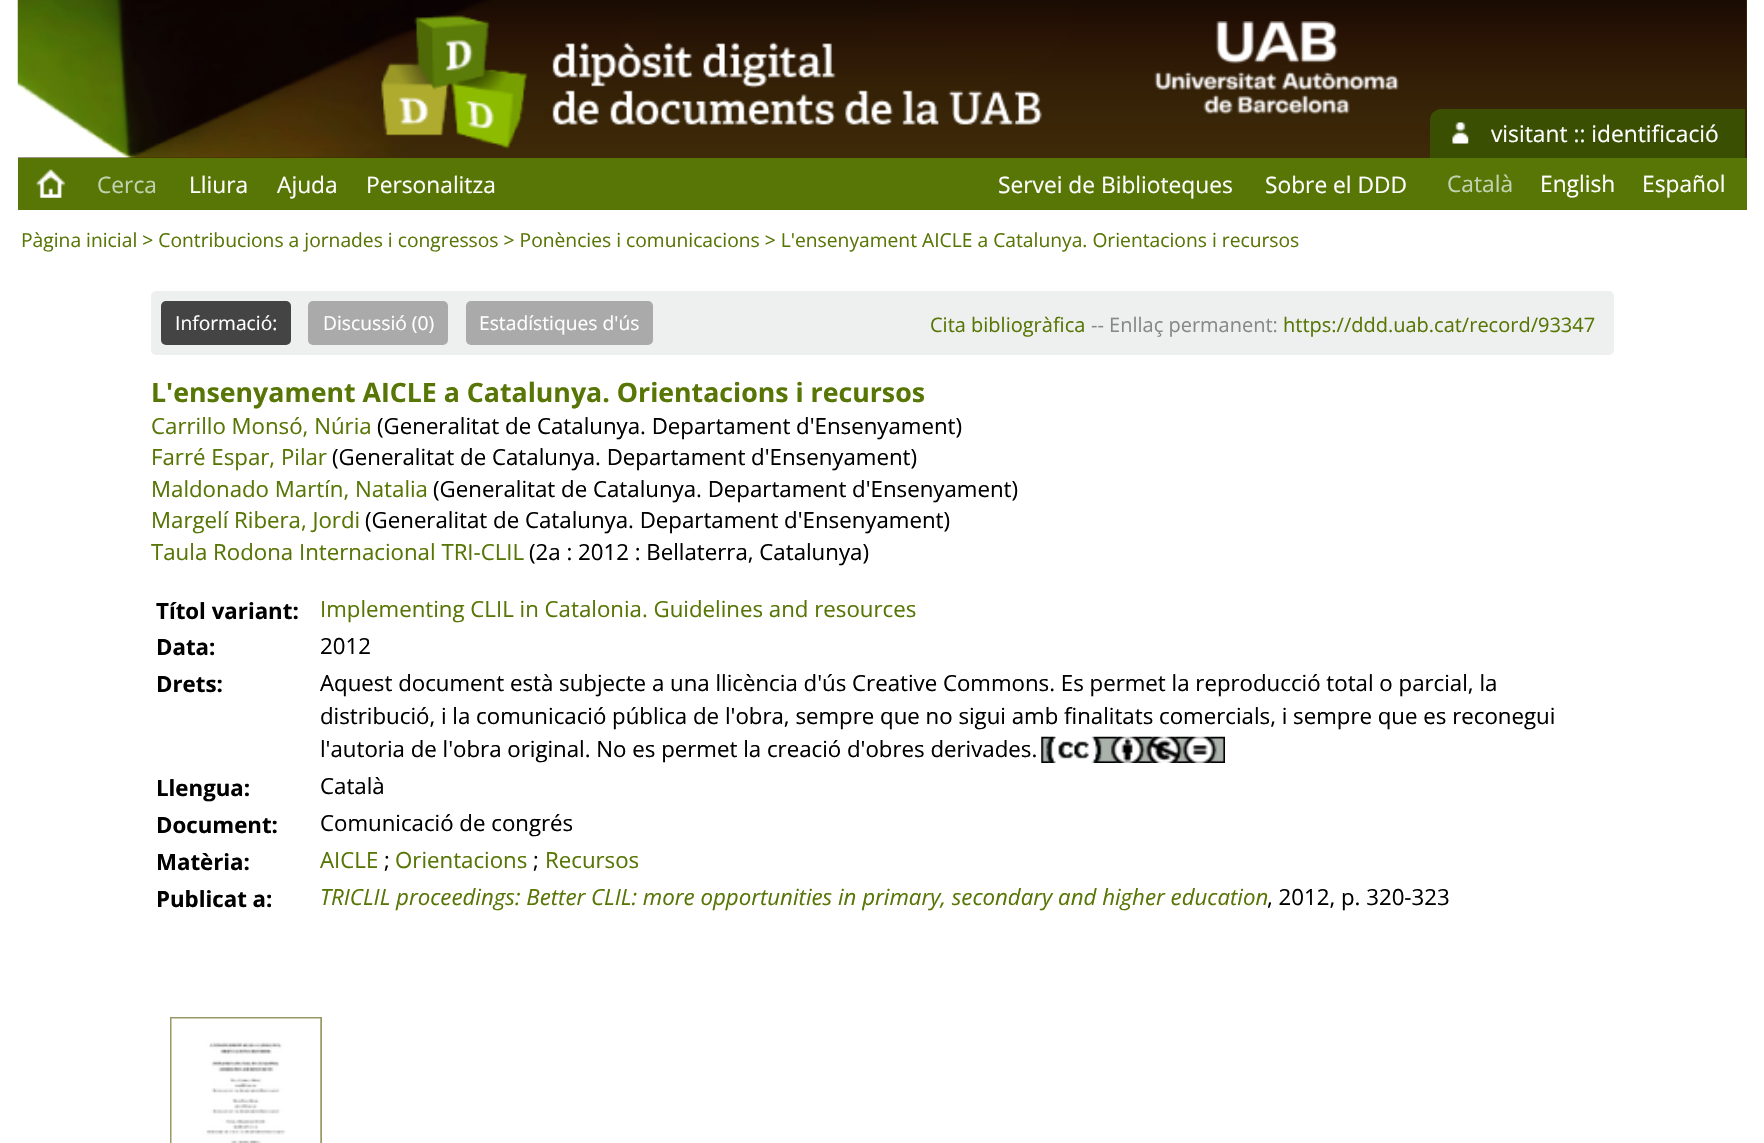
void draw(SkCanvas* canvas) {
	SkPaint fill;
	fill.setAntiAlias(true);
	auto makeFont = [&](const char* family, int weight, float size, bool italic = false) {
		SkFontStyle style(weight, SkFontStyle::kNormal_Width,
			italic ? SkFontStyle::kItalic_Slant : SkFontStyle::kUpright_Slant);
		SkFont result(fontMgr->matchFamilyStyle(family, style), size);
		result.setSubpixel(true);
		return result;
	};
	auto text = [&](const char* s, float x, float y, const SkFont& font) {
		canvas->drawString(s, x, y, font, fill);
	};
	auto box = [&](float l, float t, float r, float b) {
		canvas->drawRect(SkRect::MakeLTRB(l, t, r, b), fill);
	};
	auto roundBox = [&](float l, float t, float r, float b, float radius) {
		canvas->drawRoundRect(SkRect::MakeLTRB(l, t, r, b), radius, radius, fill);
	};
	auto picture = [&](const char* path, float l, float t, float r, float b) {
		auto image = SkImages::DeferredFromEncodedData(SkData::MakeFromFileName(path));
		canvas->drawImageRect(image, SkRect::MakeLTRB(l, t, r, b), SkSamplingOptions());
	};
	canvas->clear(0xFFFFFFFF);
	fill.setColor(0xFF3D2908);
	box(18, 0, 1747, 158);
	picture("image1.png", 17, 0, 1747, 158);
	picture("image0.png", 1154, 21, 1399, 114);
	fill.setColor(0xFF3B4F03);
	canvas->drawPath(SkPathBuilder().moveTo(1441, 109).lineTo(1745, 109).lineTo(1745, 158).lineTo(1430, 158).lineTo(1430, 120).cubicTo(1430, 114, 1435, 109, 1441, 109).close().detach(), fill);
	picture("image2.png", 1452, 122, 1469, 144);
	fill.setColor(0xFF587606);
	box(18, 158, 1747, 210);
	picture("image3.png", 36, 169, 65, 198);
	fill.setColor(0xFFEEF0EF);
	roundBox(151, 291, 1614, 355, 5);
	fill.setColor(0xFF444444);
	roundBox(161, 301, 291, 345, 5);
	fill.setColor(0xFFAAAAAA);
	roundBox(308, 301, 448, 345, 5);
	roundBox(466, 301, 653, 345, 5);
	picture("image4.png", 1041, 736, 1225, 763);
	fill.setStyle(SkPaint::kStroke_Style);
	fill.setStrokeWidth(2);
	fill.setColor(0xFF999966);
	canvas->drawRect(SkRect::MakeLTRB(171, 1018, 321, 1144), fill);
	picture("image5.png", 171, 1018, 321, 1143);
	auto font1 = makeFont("Open Sans", 400, 22.75f);
	fill.setStyle(SkPaint::kFill_Style);
	fill.setColor(0xFFFFFFFF);
	text("visitant :: identificació", 1491, 142, font1);
	fill.setColor(0xFFC1D2B0);
	text("Cerca", 97, 193, font1);
	fill.setColor(0xFFFFFFFF);
	text("Lliura", 189, 193, font1);
	text("Ajuda", 277, 193, font1);
	text("Personalitza", 366, 193, font1);
	text("Servei de Biblioteques", 998, 193, font1);
	text("Sobre el DDD", 1265, 193, font1);
	fill.setColor(0xFFC1D2B0);
	text("Català", 1447, 192, font1);
	fill.setColor(0xFFFFFFFF);
	text("English", 1540, 192, font1);
	text("Español", 1642, 192, font1);
	auto font2 = makeFont("Open Sans", 400, 19.25f);
	fill.setColor(0xFF587606);
	text("Pàgina inicial > Contribucions a jornades i congressos > Ponències i comunicacions > L'ensenyament AICLE a Catalunya. Orientacions i recursos", 21, 247, font2);
	fill.setColor(0xFFFFFFFF);
	text("Informació:", 175, 330, font2);
	text("Discussió (0)", 323, 330, font2);
	text("Estadístiques d'ús", 479, 330, font2);
	auto font3 = makeFont("Open Sans", 400, 20);
	fill.setColor(0xFF587606);
	text("Cita bibliogràfica", 930, 332, font3);
	fill.setColor(0xFF888888);
	text("-- Enllaç permanent:", 1091, 332, font3);
	fill.setColor(0xFF587606);
	text("https://ddd.uab.cat/record/93347", 1283, 332, font3);
	auto font4 = makeFont("Open Sans", 700, 26.7f);
	text("L'ensenyament AICLE a Catalunya. Orientacions i recursos", 151, 402, font4);
	auto font5 = makeFont("Open Sans", 400, 22.25f);
	text("Carrillo Monsó, Núria", 151, 434, font5);
	fill.setColor(0xFF000000);
	text("(Generalitat de Catalunya. Departament d'Ensenyament)", 377, 434, font5);
	fill.setColor(0xFF587606);
	text("Farré Espar, Pilar", 151, 465, font5);
	fill.setColor(0xFF000000);
	text("(Generalitat de Catalunya. Departament d'Ensenyament)", 332, 465, font5);
	fill.setColor(0xFF587606);
	text("Maldonado Martín, Natalia", 151, 497, font5);
	fill.setColor(0xFF000000);
	text("(Generalitat de Catalunya. Departament d'Ensenyament)", 433, 497, font5);
	fill.setColor(0xFF587606);
	text("Margelí Ribera, Jordi", 151, 528, font5);
	fill.setColor(0xFF000000);
	text("(Generalitat de Catalunya. Departament d'Ensenyament)", 365, 528, font5);
	fill.setColor(0xFF587606);
	text("Taula Rodona Internacional TRI-CLIL", 151, 560, font5);
	fill.setColor(0xFF000000);
	text("(2a : 2012 : Bellaterra, Catalunya)", 529, 560, font5);
	auto font6 = makeFont("Open Sans", 700, 22.25f);
	text("Títol variant:", 156, 619, font6);
	fill.setColor(0xFF587606);
	text("Implementing CLIL in Catalonia. Guidelines and resources", 320, 617, font5);
	fill.setColor(0xFF000000);
	text("Data:", 156, 655, font6);
	text("2012", 320, 654, font5);
	text("Drets:", 156, 692, font6);
	text("Aquest document està subjecte a una llicència d'ús Creative Commons. Es permet la reproducció total o parcial, la", 320, 691, font5);
	text("distribució, i la comunicació pública de l'obra, sempre que no sigui amb finalitats comercials, i sempre que es reconegui", 320, 724, font5);
	text("l'autoria de l'obra original. No es permet la creació d'obres derivades.", 320, 757, font5);
	text("Llengua:", 156, 796, font6);
	text("Català", 320, 794, font5);
	text("Document:", 156, 833, font6);
	text("Comunicació de congrés", 320, 831, font5);
	text("Matèria:", 156, 870, font6);
	fill.setColor(0xFF587606);
	text("AICLE", 320, 868, font5);
	fill.setColor(0xFF000000);
	text(";", 384, 868, font5);
	fill.setColor(0xFF587606);
	text("Orientacions", 395, 868, font5);
	fill.setColor(0xFF000000);
	text(";", 533, 868, font5);
	fill.setColor(0xFF587606);
	text("Recursos", 545, 868, font5);
	fill.setColor(0xFF000000);
	text("Publicat a:", 156, 907, font6);
	auto font7 = makeFont("Open Sans", 400, 22.25f, true);
	fill.setColor(0xFF587606);
	text("TRICLIL proceedings: Better CLIL: more opportunities in primary, secondary and higher education", 320, 905, font7);
	fill.setColor(0xFF000000);
	text(", 2012, p. 320-323", 1267, 905, font5);
}
